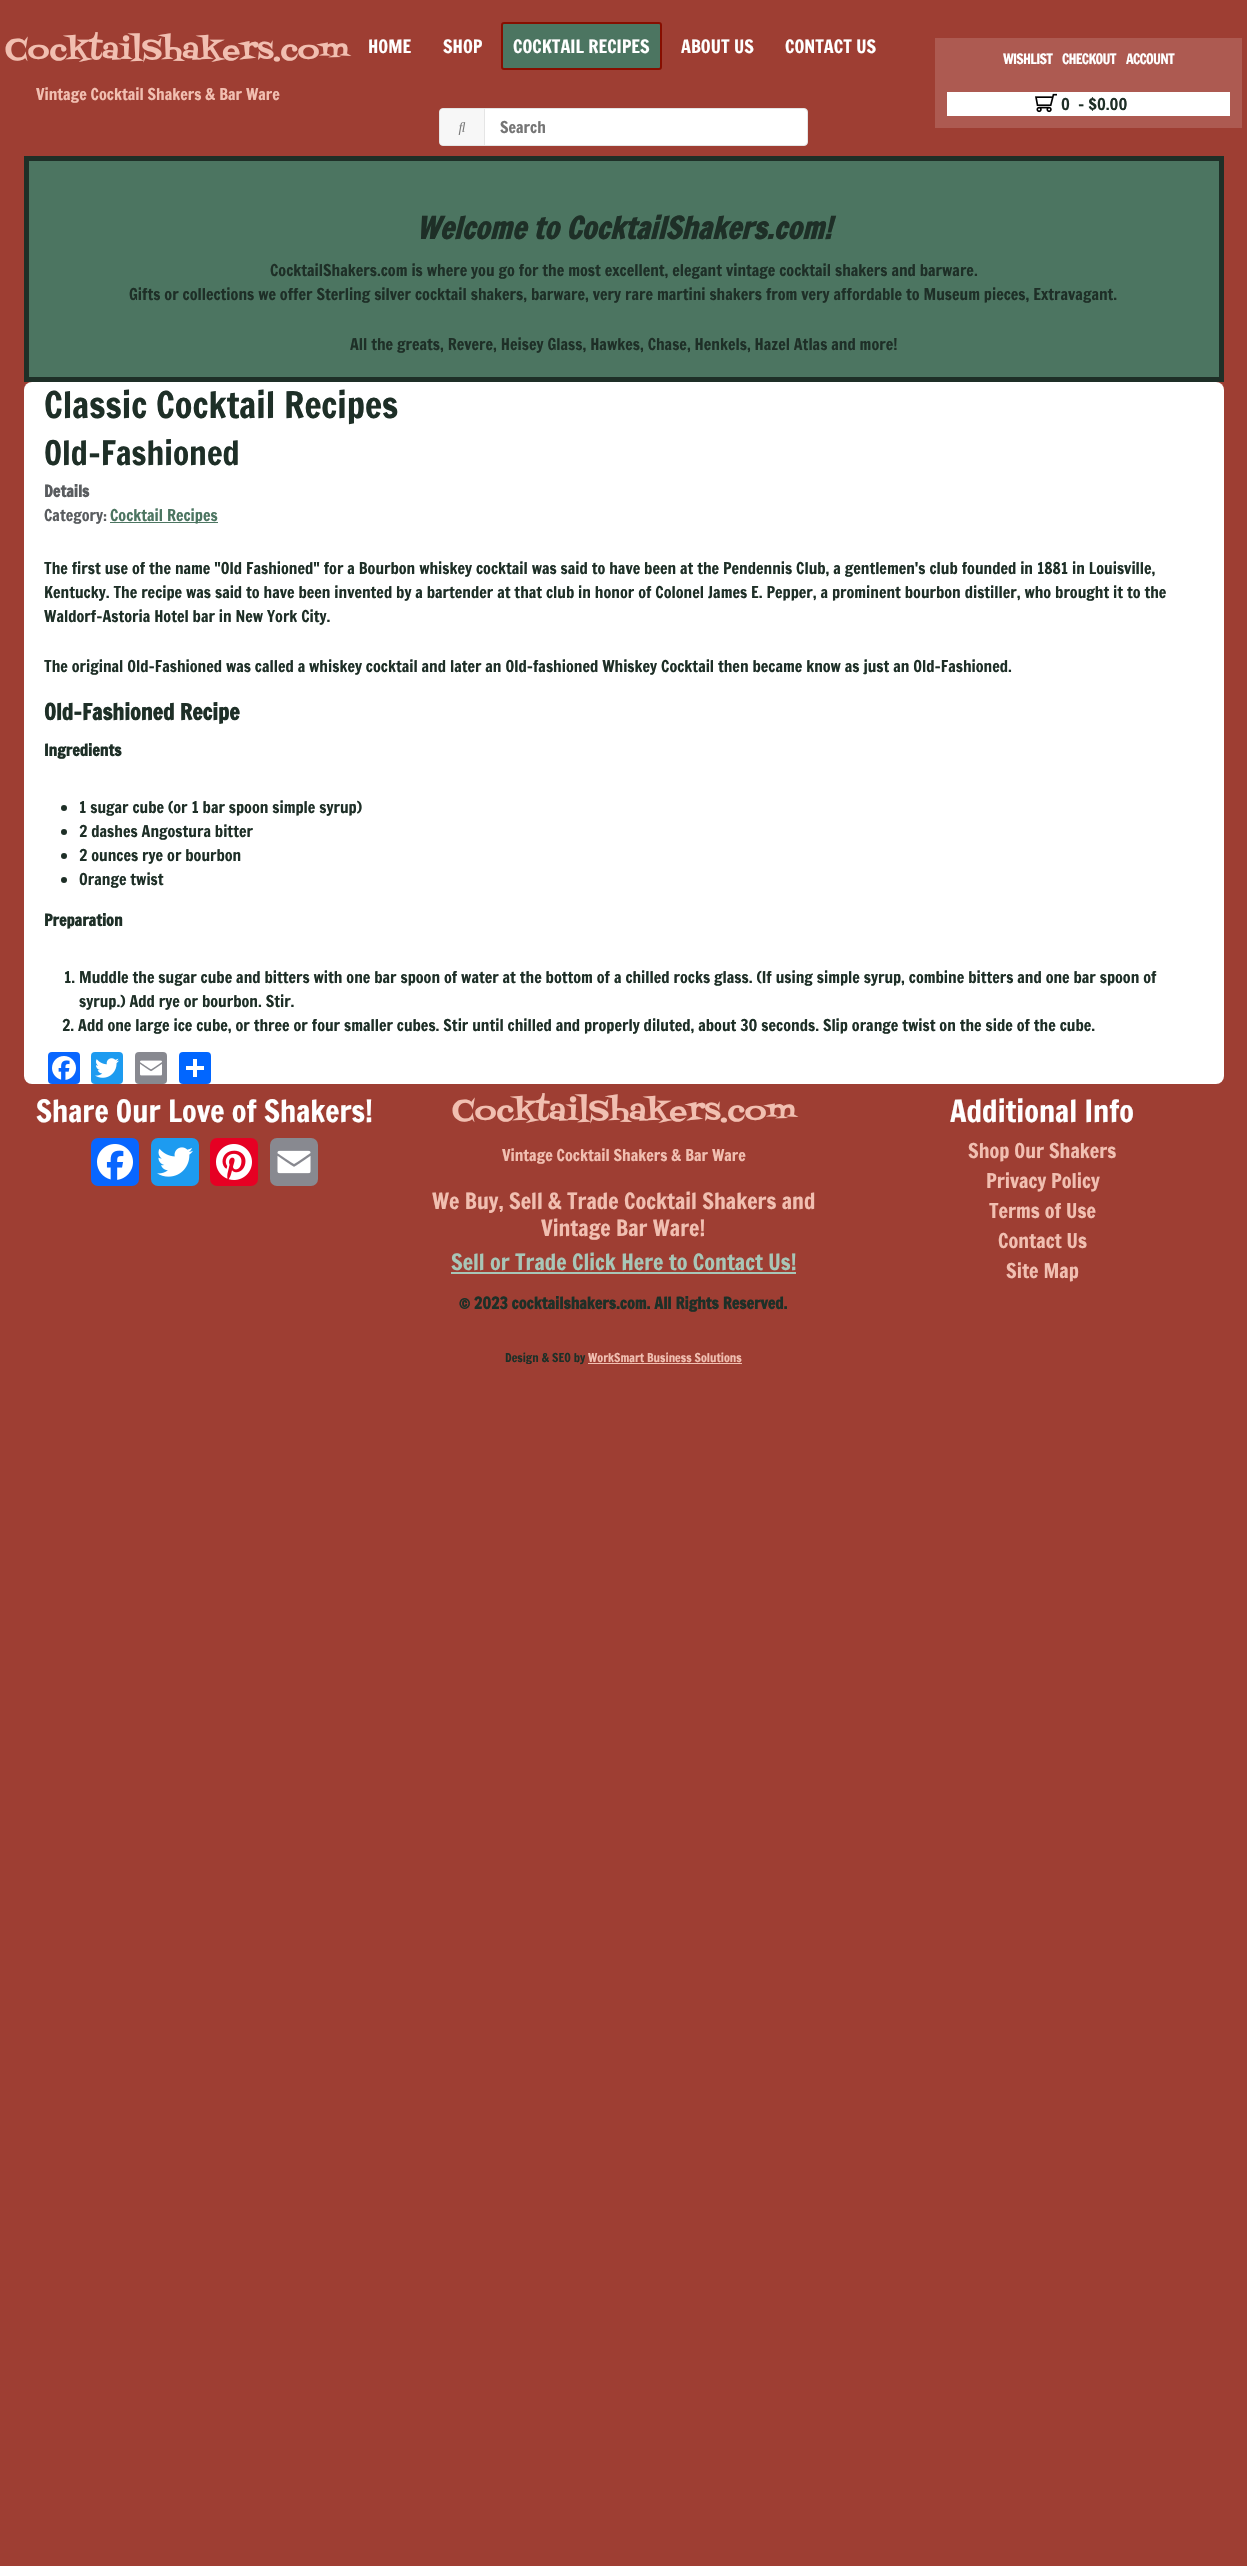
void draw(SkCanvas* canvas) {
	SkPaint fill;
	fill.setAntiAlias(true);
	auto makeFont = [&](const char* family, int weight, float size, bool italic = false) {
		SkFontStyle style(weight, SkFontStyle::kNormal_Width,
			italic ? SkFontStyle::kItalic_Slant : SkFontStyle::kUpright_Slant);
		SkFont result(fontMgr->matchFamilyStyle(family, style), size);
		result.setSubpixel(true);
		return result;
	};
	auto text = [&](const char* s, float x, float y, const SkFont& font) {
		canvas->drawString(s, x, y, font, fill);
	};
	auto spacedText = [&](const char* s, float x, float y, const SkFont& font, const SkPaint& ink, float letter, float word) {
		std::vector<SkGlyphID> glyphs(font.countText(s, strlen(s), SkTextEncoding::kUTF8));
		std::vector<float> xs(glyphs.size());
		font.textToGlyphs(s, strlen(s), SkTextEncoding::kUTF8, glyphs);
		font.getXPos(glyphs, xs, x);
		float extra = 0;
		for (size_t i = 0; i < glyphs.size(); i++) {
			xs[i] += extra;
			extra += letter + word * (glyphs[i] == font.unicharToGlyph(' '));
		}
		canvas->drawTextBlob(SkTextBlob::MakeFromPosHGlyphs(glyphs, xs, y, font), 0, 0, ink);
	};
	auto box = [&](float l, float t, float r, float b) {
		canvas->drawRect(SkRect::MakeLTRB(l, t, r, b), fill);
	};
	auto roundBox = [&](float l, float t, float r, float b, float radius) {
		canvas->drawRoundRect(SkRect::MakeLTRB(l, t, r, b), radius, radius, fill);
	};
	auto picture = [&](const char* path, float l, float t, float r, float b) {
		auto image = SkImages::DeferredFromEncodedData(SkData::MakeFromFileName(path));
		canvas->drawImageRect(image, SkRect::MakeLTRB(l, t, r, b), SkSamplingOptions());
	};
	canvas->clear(0xFF9E3E33);
	fill.setColor(0xFF4C7561);
	canvas->drawRoundRect(SkRect::MakeLTRB(502, 23, 661, 69), 2, 2, fill);
	fill.setStyle(SkPaint::kStroke_Style);
	fill.setStrokeWidth(2);
	fill.setColor(0xFF870E00);
	canvas->drawRoundRect(SkRect::MakeLTRB(502, 23, 661, 69), 2, 2, fill);
	fill.setStyle(SkPaint::kFill_Style);
	fill.setColor(0xFFFFFFFF);
	canvas->drawRoundRect(SkRect::MakeLTRB(439.5f, 108.5f, 807.5f, 145.5f), 3.5f, 3.5f, fill);
	fill.setStyle(SkPaint::kStroke_Style);
	fill.setStrokeWidth(1);
	fill.setColor(0xFFE5E5E5);
	canvas->drawRoundRect(SkRect::MakeLTRB(439.5f, 108.5f, 807.5f, 145.5f), 3.5f, 3.5f, fill);
	fill.setStyle(SkPaint::kFill_Style);
	fill.setColor(0xFFF7F7F7);
	canvas->drawPath(SkPathBuilder().moveTo(443, 109).lineTo(485, 109).lineTo(485, 145).lineTo(443, 145).cubicTo(441.5f, 145, 440, 143.5f, 440, 142).lineTo(440, 112).cubicTo(440, 110.5f, 441.5f, 109, 443, 109).close().detach(), fill);
	fill.setColor(0xFFE5E5E5);
	box(484, 109, 485, 145);
	picture("image0.png", 458, 122, 466, 135);
	fill.setColor(0xFFAD5A51);
	box(935, 38, 1242, 80);
	fill.setColor(0xFFFFFFFF);
	canvas->drawRect(SkRect::MakeLTRB(941, 86, 1236, 122), fill);
	fill.setStyle(SkPaint::kStroke_Style);
	fill.setStrokeWidth(12);
	fill.setColor(0xFFAD5A51);
	canvas->drawRect(SkRect::MakeLTRB(941, 86, 1236, 122), fill);
	picture("image1.png", 1035, 93, 1057, 113);
	fill.setStyle(SkPaint::kFill_Style);
	fill.setColor(0xFF4C7561);
	canvas->drawRect(SkRect::MakeLTRB(26.5f, 158.5f, 1221.5f, 379.5f), fill);
	fill.setStyle(SkPaint::kStroke_Style);
	fill.setStrokeWidth(5);
	fill.setColor(0xFF1E2F27);
	canvas->drawRect(SkRect::MakeLTRB(26.5f, 158.5f, 1221.5f, 379.5f), fill);
	fill.setStyle(SkPaint::kFill_Style);
	fill.setColor(0xFFFFFFFF);
	roundBox(24, 382, 1224, 1084, 8);
	fill.setColor(0xFF4C7561);
	box(110, 522, 218, 523);
	fill.setColor(0xFF1E2F27);
	canvas->drawCircle(64, 808, 3, fill);
	canvas->drawCircle(64, 832, 3, fill);
	canvas->drawCircle(64, 856, 3, fill);
	canvas->drawCircle(64, 880, 3, fill);
	fill.setColor(0xFF0866FF);
	roundBox(48, 1052, 80, 1084, 4);
	picture("image2.png", 52, 1056, 76, 1080);
	fill.setColor(0xFF1D9BF0);
	roundBox(91, 1052, 123, 1084, 4);
	picture("image3.png", 95, 1058, 119, 1078);
	fill.setColor(0xFF888990);
	roundBox(135, 1052, 167, 1084, 4);
	picture("image4.png", 140, 1060, 162, 1076);
	fill.setColor(0xFF0166FF);
	roundBox(179, 1052, 211, 1084, 4);
	fill.setColor(0xFFFFFFFF);
	box(193, 1059, 197, 1077);
	box(186, 1066, 204, 1070);
	fill.setColor(0xFF0866FF);
	roundBox(91, 1138, 139, 1186, 7);
	picture("image5.png", 97, 1144, 133, 1180);
	fill.setColor(0xFF1D9BF0);
	roundBox(151, 1138, 199, 1186, 7);
	picture("image6.png", 157, 1147, 193, 1177);
	fill.setColor(0xFFE60023);
	roundBox(210, 1138, 258, 1186, 7);
	picture("image7.png", 216, 1144, 252, 1180);
	fill.setColor(0xFF888990);
	roundBox(270, 1138, 318, 1186, 7);
	picture("image8.png", 277, 1150, 311, 1174);
	fill.setColor(0xFFA8C6B7);
	box(451, 1272, 796, 1274);
	fill.setColor(0xFFF1BFB1);
	box(588, 1363, 742, 1364);
	auto font1 = makeFont("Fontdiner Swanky", 400, 30);
	text("CocktailShakers.com", 5, 59, font1);
	auto font2 = makeFont("Francois One", 400, 16);
	text("Vintage Cocktail Shakers & Bar Ware", 36, 100, font2);
	auto font3 = makeFont("Francois One", 400, 18);
	fill.setColor(0xFFFFFFFF);
	text("HOME", 368, 53, font3);
	text("SHOP", 443, 53, font3);
	text("COCKTAIL RECIPES", 513, 53, font3);
	text("ABOUT US", 681, 53, font3);
	text("CONTACT US", 785, 53, font3);
	fill.setColor(0xFF757575);
	text("Search", 500, 133, font2);
	auto font4 = makeFont("Francois One", 400, 14);
	fill.setColor(0xFFFFFFFF);
	spacedText("WISHLIST", 1003, 64, font4, fill, -0.75f, 0);
	spacedText("CHECKOUT", 1062, 64, font4, fill, -0.75f, 0);
	spacedText("ACCOUNT", 1126, 64, font4, fill, -0.75f, 0);
	fill.setColor(0xFF1E2F27);
	text("0", 1061, 110, font2);
	text("- $0.00", 1078, 110, font2);
	auto font5 = makeFont("Francois One", 700, 30, true);
	text("Welcome to CocktailShakers.com!", 416, 239, font5);
	text("CocktailShakers.com is where you go for the most excellent, elegant vintage cocktail shakers and barware.", 270, 276, font2);
	text("Gifts or collections we offer Sterling silver cocktail shakers, barware, very rare martini shakers from very affordable to Museum pieces, Extravagant.", 129, 300, font2);
	text("All the greats, Revere, Heisey Glass, Hawkes, Chase, Henkels, Hazel Atlas and more!", 350, 350, font2);
	auto font6 = makeFont("Francois One", 400, 36);
	text("Classic Cocktail Recipes", 44, 418, font6);
	auto font7 = makeFont("Francois One", 400, 33);
	text("Old-Fashioned", 44, 465, font7);
	auto font8 = makeFont("Francois One", 700, 16);
	fill.setColor(0xFF595C5F);
	text("Details", 44, 497, font8);
	text("Category:", 44, 521, font2);
	fill.setColor(0xFF4C7561);
	text("Cocktail Recipes", 110, 521, font2);
	fill.setColor(0xFF1E2F27);
	text("The first use of the name \"Old Fashioned\" for a Bourbon whiskey cocktail was said to have been at the Pendennis Club, a gentlemen's club founded in 1881 in Louisville,", 44, 574, font2);
	text("Kentucky. The recipe was said to have been invented by a bartender at that club in honor of Colonel James E. Pepper, a prominent bourbon distiller, who brought it to the", 44, 598, font2);
	text("Waldorf-Astoria Hotel bar in New York City.", 44, 622, font2);
	text("The original Old-Fashioned was called a whiskey cocktail and later an Old-fashioned Whiskey Cocktail then became know as just an Old-Fashioned.", 44, 672, font2);
	auto font9 = makeFont("Francois One", 700, 22);
	text("Old-Fashioned Recipe", 44, 720, font9);
	text("Ingredients", 44, 756, font8);
	text("1 sugar cube (or 1 bar spoon simple syrup)", 79, 813, font2);
	text("2 dashes Angostura bitter", 79, 837, font2);
	text("2 ounces rye or bourbon", 79, 861, font2);
	text("Orange twist", 79, 885, font2);
	text("Preparation", 44, 926, font8);
	text("1. Muddle the sugar cube and bitters with one bar spoon of water at the bottom of a chilled rocks glass. (If using simple syrup, combine bitters and one bar spoon of", 64, 983, font2);
	text("syrup.) Add rye or bourbon. Stir.", 79, 1007, font2);
	text("2. Add one large ice cube, or three or four smaller cubes. Stir until chilled and properly diluted, about 30 seconds. Slip orange twist on the side of the cube.", 62, 1031, font2);
	auto font10 = makeFont("Francois One", 400, 30);
	fill.setColor(0xFFFFFFFF);
	text("Share Our Love of Shakers!", 36, 1122, font10);
	fill.setColor(0xFFF1BFB1);
	text("CocktailShakers.com", 452, 1120, font1);
	text("Vintage Cocktail Shakers & Bar Ware", 502, 1161, font2);
	auto font11 = makeFont("Francois One", 400, 22);
	text("We Buy, Sell & Trade Cocktail Shakers and", 432, 1209, font11);
	text("Vintage Bar Ware!", 541, 1236, font11);
	fill.setColor(0xFFA8C6B7);
	text("Sell or Trade Click Here to Contact Us!", 451, 1270, font11);
	fill.setColor(0xFFFFFFFF);
	text("Additional Info", 950, 1122, font10);
	auto font12 = makeFont("Francois One", 400, 20);
	fill.setColor(0xFFF1BFB1);
	text("Shop Our Shakers", 968, 1158, font12);
	text("Privacy Policy", 986, 1188, font12);
	text("Terms of Use", 989, 1218, font12);
	text("Contact Us", 998, 1248, font12);
	text("Site Map", 1006, 1278, font12);
	fill.setColor(0xFF1E2F27);
	text("© 2023 cocktailshakers.com. All Rights Reserved.", 459, 1309, font8);
	auto font13 = makeFont("Francois One", 400, 12);
	text("Design & SEO by", 505, 1362, font13);
	fill.setColor(0xFFF1BFB1);
	text("WorkSmart Business Solutions", 588, 1362, font13);
}
